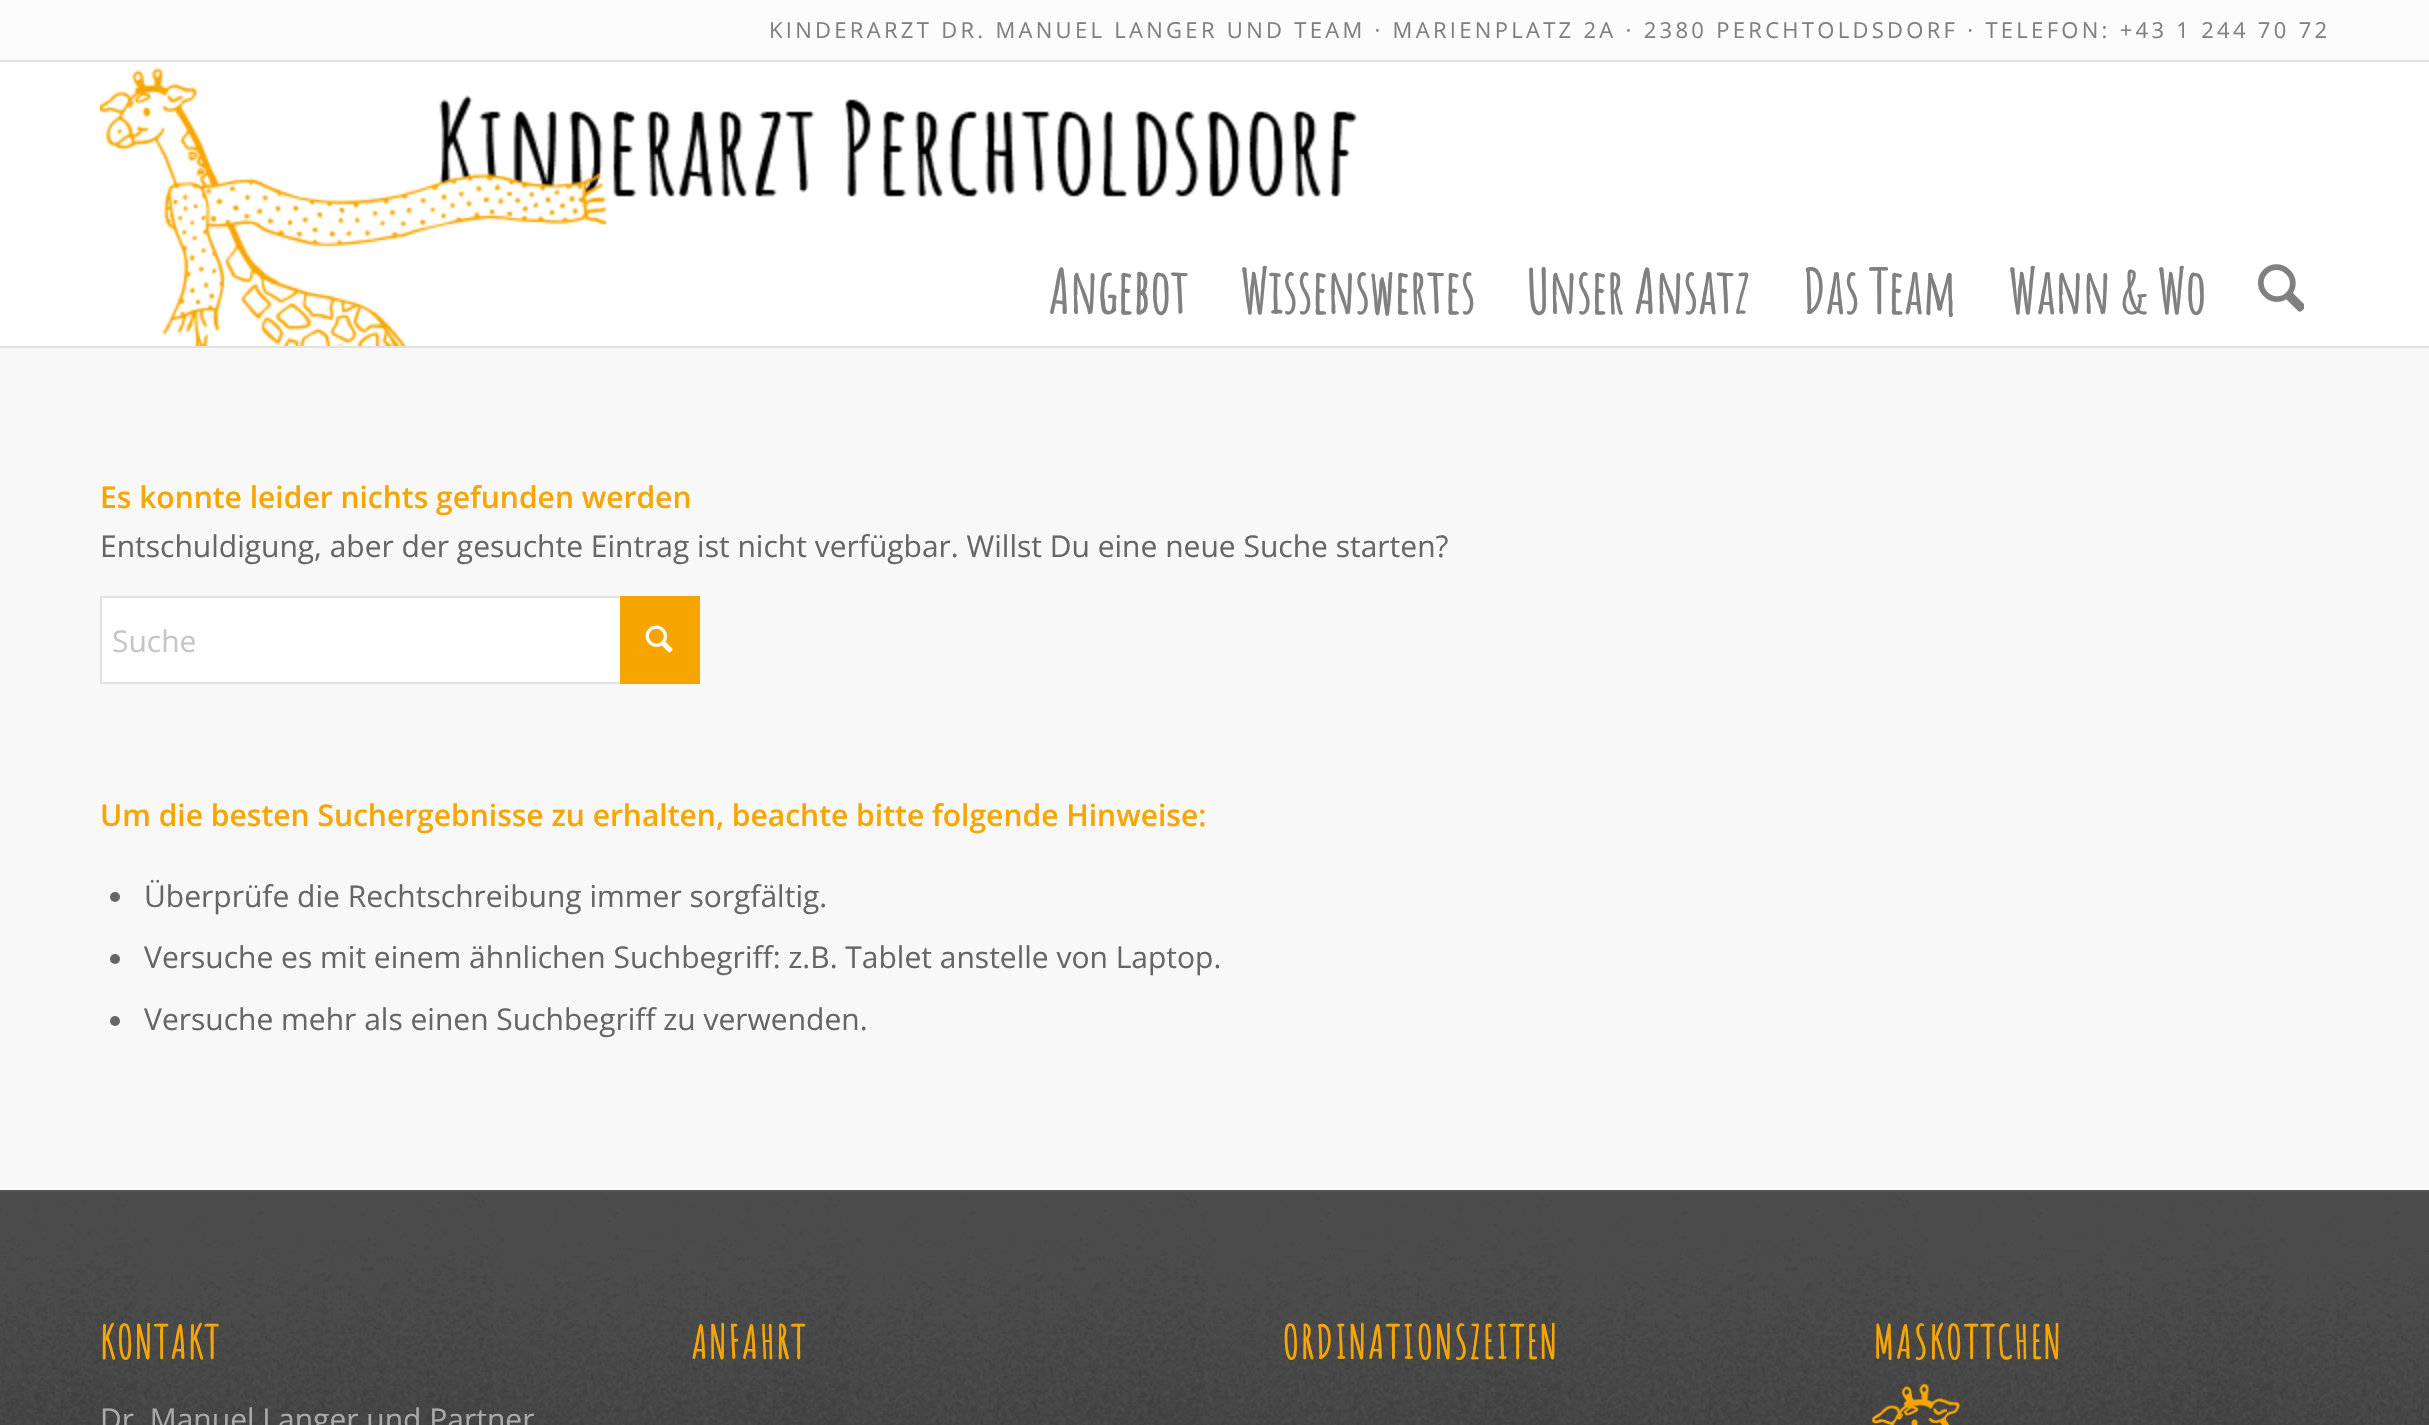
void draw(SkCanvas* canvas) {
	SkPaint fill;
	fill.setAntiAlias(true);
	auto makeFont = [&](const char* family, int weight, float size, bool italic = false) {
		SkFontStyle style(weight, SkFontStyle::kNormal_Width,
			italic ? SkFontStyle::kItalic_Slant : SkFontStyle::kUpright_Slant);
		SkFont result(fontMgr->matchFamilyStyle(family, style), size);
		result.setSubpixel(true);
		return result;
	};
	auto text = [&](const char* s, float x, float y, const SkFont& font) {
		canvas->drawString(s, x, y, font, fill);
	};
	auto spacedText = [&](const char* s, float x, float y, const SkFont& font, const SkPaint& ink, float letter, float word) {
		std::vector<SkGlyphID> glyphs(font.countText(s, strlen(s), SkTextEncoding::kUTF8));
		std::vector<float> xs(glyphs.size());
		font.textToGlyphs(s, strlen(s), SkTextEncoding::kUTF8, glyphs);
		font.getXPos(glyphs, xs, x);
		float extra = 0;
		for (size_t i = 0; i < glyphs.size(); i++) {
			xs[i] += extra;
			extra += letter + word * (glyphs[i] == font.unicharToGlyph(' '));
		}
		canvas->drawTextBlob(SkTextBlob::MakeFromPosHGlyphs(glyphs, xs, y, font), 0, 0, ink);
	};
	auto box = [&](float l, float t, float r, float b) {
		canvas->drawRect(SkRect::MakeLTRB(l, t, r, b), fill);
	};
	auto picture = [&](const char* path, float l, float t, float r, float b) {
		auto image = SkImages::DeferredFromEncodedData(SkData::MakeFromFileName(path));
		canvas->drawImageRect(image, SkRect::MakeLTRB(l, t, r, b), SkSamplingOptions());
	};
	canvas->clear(0xFFFFFFFF);
	fill.setColor(0xFFFCFCFC);
	box(0, 0, 2429, 60);
	fill.setColor(0xFFE1E1E1);
	box(0, 60, 2429, 62);
	box(0, 346, 2429, 348);
	picture("image0.png", 100, 67, 1357, 346);
	picture("image1.png", 2258, 264, 2304, 312);
	fill.setColor(0xFFF8F8F8);
	box(0, 348, 2429, 1190);
	fill.setColor(0xFFFFFFFF);
	box(102, 598, 620, 682);
	fill.setStyle(SkPaint::kStroke_Style);
	fill.setStrokeWidth(2);
	fill.setColor(0xFFE1E1E1);
	canvas->drawRect(SkRect::MakeLTRB(101, 597, 699, 683), fill);
	fill.setStyle(SkPaint::kFill_Style);
	fill.setColor(0xFFF7A500);
	box(620, 596, 700, 684);
	picture("image2.png", 645, 625, 673, 653);
	fill.setColor(0xFF666666);
	canvas->drawCircle(115, 897, 5, fill);
	canvas->drawCircle(115, 959, 5, fill);
	canvas->drawCircle(115, 1021, 5, fill);
	fill.setColor(0xFF333333);
	box(0, 1192, 2429, 1425);
	picture("image3.png", 0, 1192, 2429, 1425);
	fill.setColor(0xFF555555);
	box(0, 1190, 2429, 1192);
	picture("image4.png", 1872, 1384, 1961, 1425);
	auto font1 = makeFont("Open Sans", 400, 22);
	fill.setColor(0xFF808080);
	spacedText("KINDERARZT DR. MANUEL LANGER UND TEAM · MARIENPLATZ 2A · 2380 PERCHTOLDSDORF · TELEFON: +43 1 244 70 72", 769, 38, font1, fill, 3.3f, 0);
	auto font2 = makeFont("Amatic SC", 700, 60);
	text("Angebot", 1048, 314, font2);
	text("Wissenswertes", 1240, 314, font2);
	text("Unser Ansatz", 1526, 314, font2);
	text("Das Team", 1802, 314, font2);
	text("Wann & Wo", 2008, 314, font2);
	auto font3 = makeFont("Open Sans", 600, 30);
	fill.setColor(0xFFF7A500);
	text("Es konnte leider nichts gefunden werden", 100, 508, font3);
	auto font4 = makeFont("Open Sans", 400, 30);
	fill.setColor(0xFF666666);
	text("Entschuldigung, aber der gesuchte Eintrag ist nicht verfügbar. Willst Du eine neue Suche starten?", 100, 557, font4);
	fill.setColor(0xFFC6C6C6);
	text("Suche", 112, 652, font4);
	fill.setColor(0xFFF7A500);
	text("Um die besten Suchergebnisse zu erhalten, beachte bitte folgende Hinweise:", 100, 826, font3);
	fill.setColor(0xFF666666);
	text("Überprüfe die Rechtschreibung immer sorgfältig.", 144, 907, font4);
	text("Versuche es mit einem ähnlichen Suchbegriff: z.B. Tablet anstelle von Laptop.", 144, 968, font4);
	text("Versuche mehr als einen Suchbegriff zu verwenden.", 144, 1030, font4);
	auto font5 = makeFont("Amatic SC", 700, 45);
	fill.setColor(0xFFF7A500);
	spacedText("KONTAKT", 100, 1359, font5, fill, 2, 0);
	fill.setColor(0xFFAAAAAA);
	text("Dr. Manuel Langer und Partner", 100, 1430, font4);
	fill.setColor(0xFFF7A500);
	spacedText("ANFAHRT", 691, 1359, font5, fill, 2, 0);
	spacedText("ORDINATIONSZEITEN", 1282, 1359, font5, fill, 2, 0);
	spacedText("MASKOTTCHEN", 1873, 1359, font5, fill, 2, 0);
}
